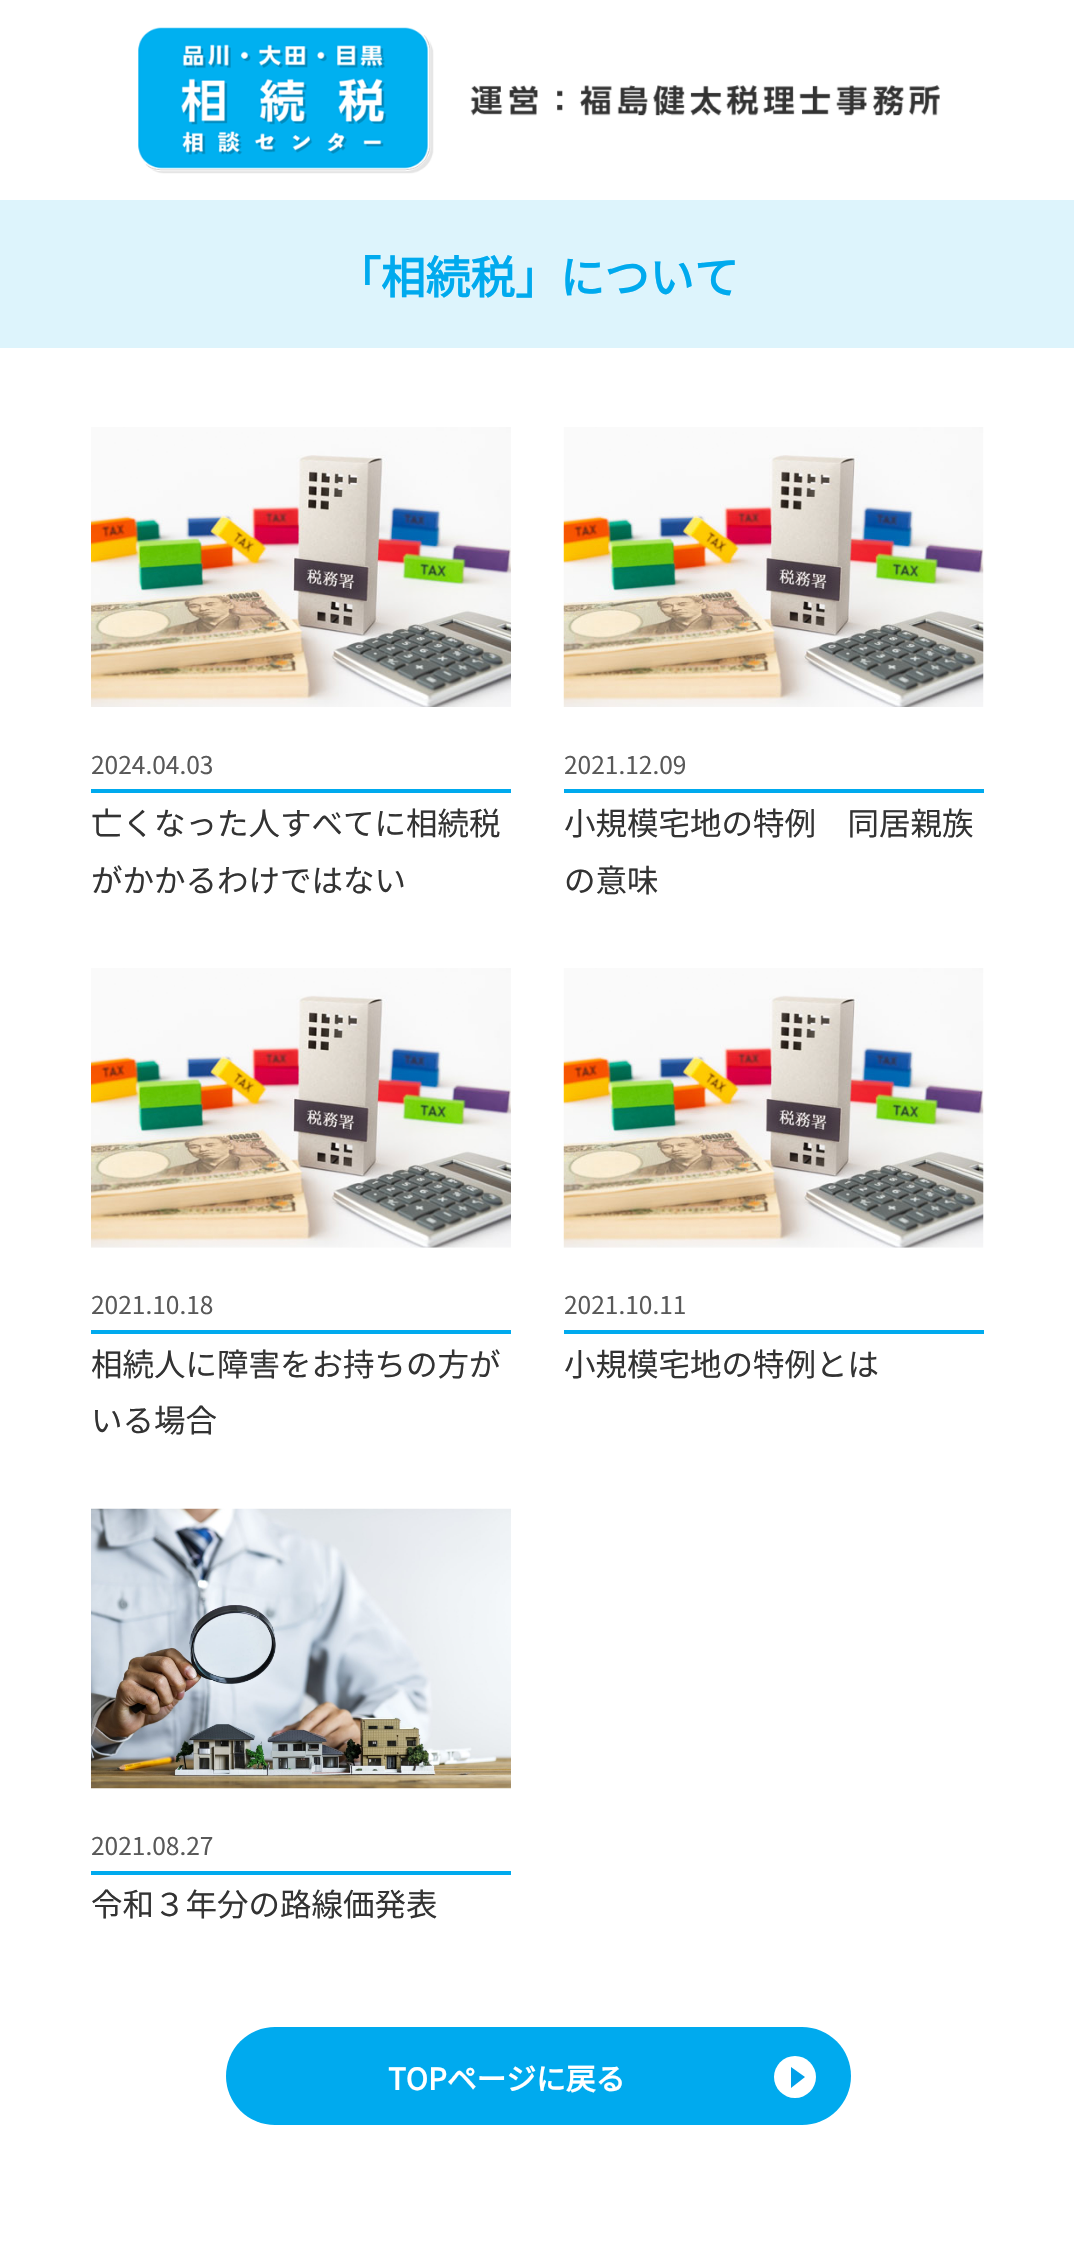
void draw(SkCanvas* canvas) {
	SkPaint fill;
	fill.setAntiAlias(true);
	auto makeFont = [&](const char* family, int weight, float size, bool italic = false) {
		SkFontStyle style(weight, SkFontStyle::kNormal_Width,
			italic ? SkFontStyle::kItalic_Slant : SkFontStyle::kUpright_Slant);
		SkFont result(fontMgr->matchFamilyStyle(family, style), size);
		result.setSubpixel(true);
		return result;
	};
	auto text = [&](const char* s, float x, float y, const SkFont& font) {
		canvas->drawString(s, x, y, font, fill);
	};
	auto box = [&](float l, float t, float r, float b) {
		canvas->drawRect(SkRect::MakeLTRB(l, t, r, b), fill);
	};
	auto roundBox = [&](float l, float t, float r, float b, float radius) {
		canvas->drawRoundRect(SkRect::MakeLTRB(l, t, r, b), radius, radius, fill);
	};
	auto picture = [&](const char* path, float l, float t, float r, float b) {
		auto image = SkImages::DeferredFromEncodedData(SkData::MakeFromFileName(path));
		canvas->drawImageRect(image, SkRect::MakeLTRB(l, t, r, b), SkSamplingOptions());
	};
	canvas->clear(0xFFFFFFFF);
	picture("image0.png", 138, 27, 940, 174);
	fill.setColor(0xFFDDF4FC);
	box(0, 200, 1074, 348);
	picture("image1.png", 91, 427, 511, 707);
	fill.setColor(0xFF00AAEE);
	box(91, 789, 511, 793);
	picture("image2.png", 563, 427, 984, 707);
	box(564, 789, 984, 793);
	picture("image3.png", 91, 968, 511, 1248);
	box(91, 1330, 511, 1334);
	picture("image4.png", 563, 968, 984, 1248);
	box(564, 1330, 984, 1334);
	picture("image5.png", 91, 1508, 511, 1789);
	box(91, 1871, 511, 1875);
	roundBox(226, 2027, 851, 2125, 49);
	fill.setColor(0xFFFFFFFF);
	canvas->drawCircle(795, 2077, 21, fill);
	fill.setColor(0xFF00A0E9);
	canvas->drawPath(SkPathBuilder().moveTo(791, 2088).lineTo(791, 2067).lineTo(805, 2077).close().detach(), fill);
	auto font1 = makeFont("Noto Sans JP", 700, 44.75f);
	fill.setColor(0xFF00AAEE);
	text("「相続税」について", 336, 294, font1);
	auto font2 = makeFont("Noto Sans JP", 100, 24.5f);
	fill.setColor(0xFF595959);
	text("2024.04.03", 91, 774, font2);
	auto font3 = makeFont("Noto Sans JP", 100, 31.5f);
	fill.setColor(0xFF333333);
	text("亡くなった人すべてに相続税", 91, 835, font3);
	text("がかかるわけではない", 91, 892, font3);
	fill.setColor(0xFF595959);
	text("2021.12.09", 564, 774, font2);
	fill.setColor(0xFF333333);
	text("小規模宅地の特例　同居親族", 564, 835, font3);
	text("の意味", 564, 892, font3);
	fill.setColor(0xFF595959);
	text("2021.10.18", 91, 1314, font2);
	fill.setColor(0xFF333333);
	text("相続人に障害をお持ちの方が", 91, 1376, font3);
	text("いる場合", 91, 1432, font3);
	fill.setColor(0xFF595959);
	text("2021.10.11", 564, 1314, font2);
	fill.setColor(0xFF333333);
	text("小規模宅地の特例とは", 564, 1376, font3);
	fill.setColor(0xFF595959);
	text("2021.08.27", 91, 1855, font2);
	fill.setColor(0xFF333333);
	text("令和３年分の路線価発表", 91, 1916, font3);
	auto font4 = makeFont("Noto Sans JP", 700, 29.75f);
	fill.setColor(0xFFFFFFFF);
	text("TOPページに戻る", 388, 2090, font4);
}
